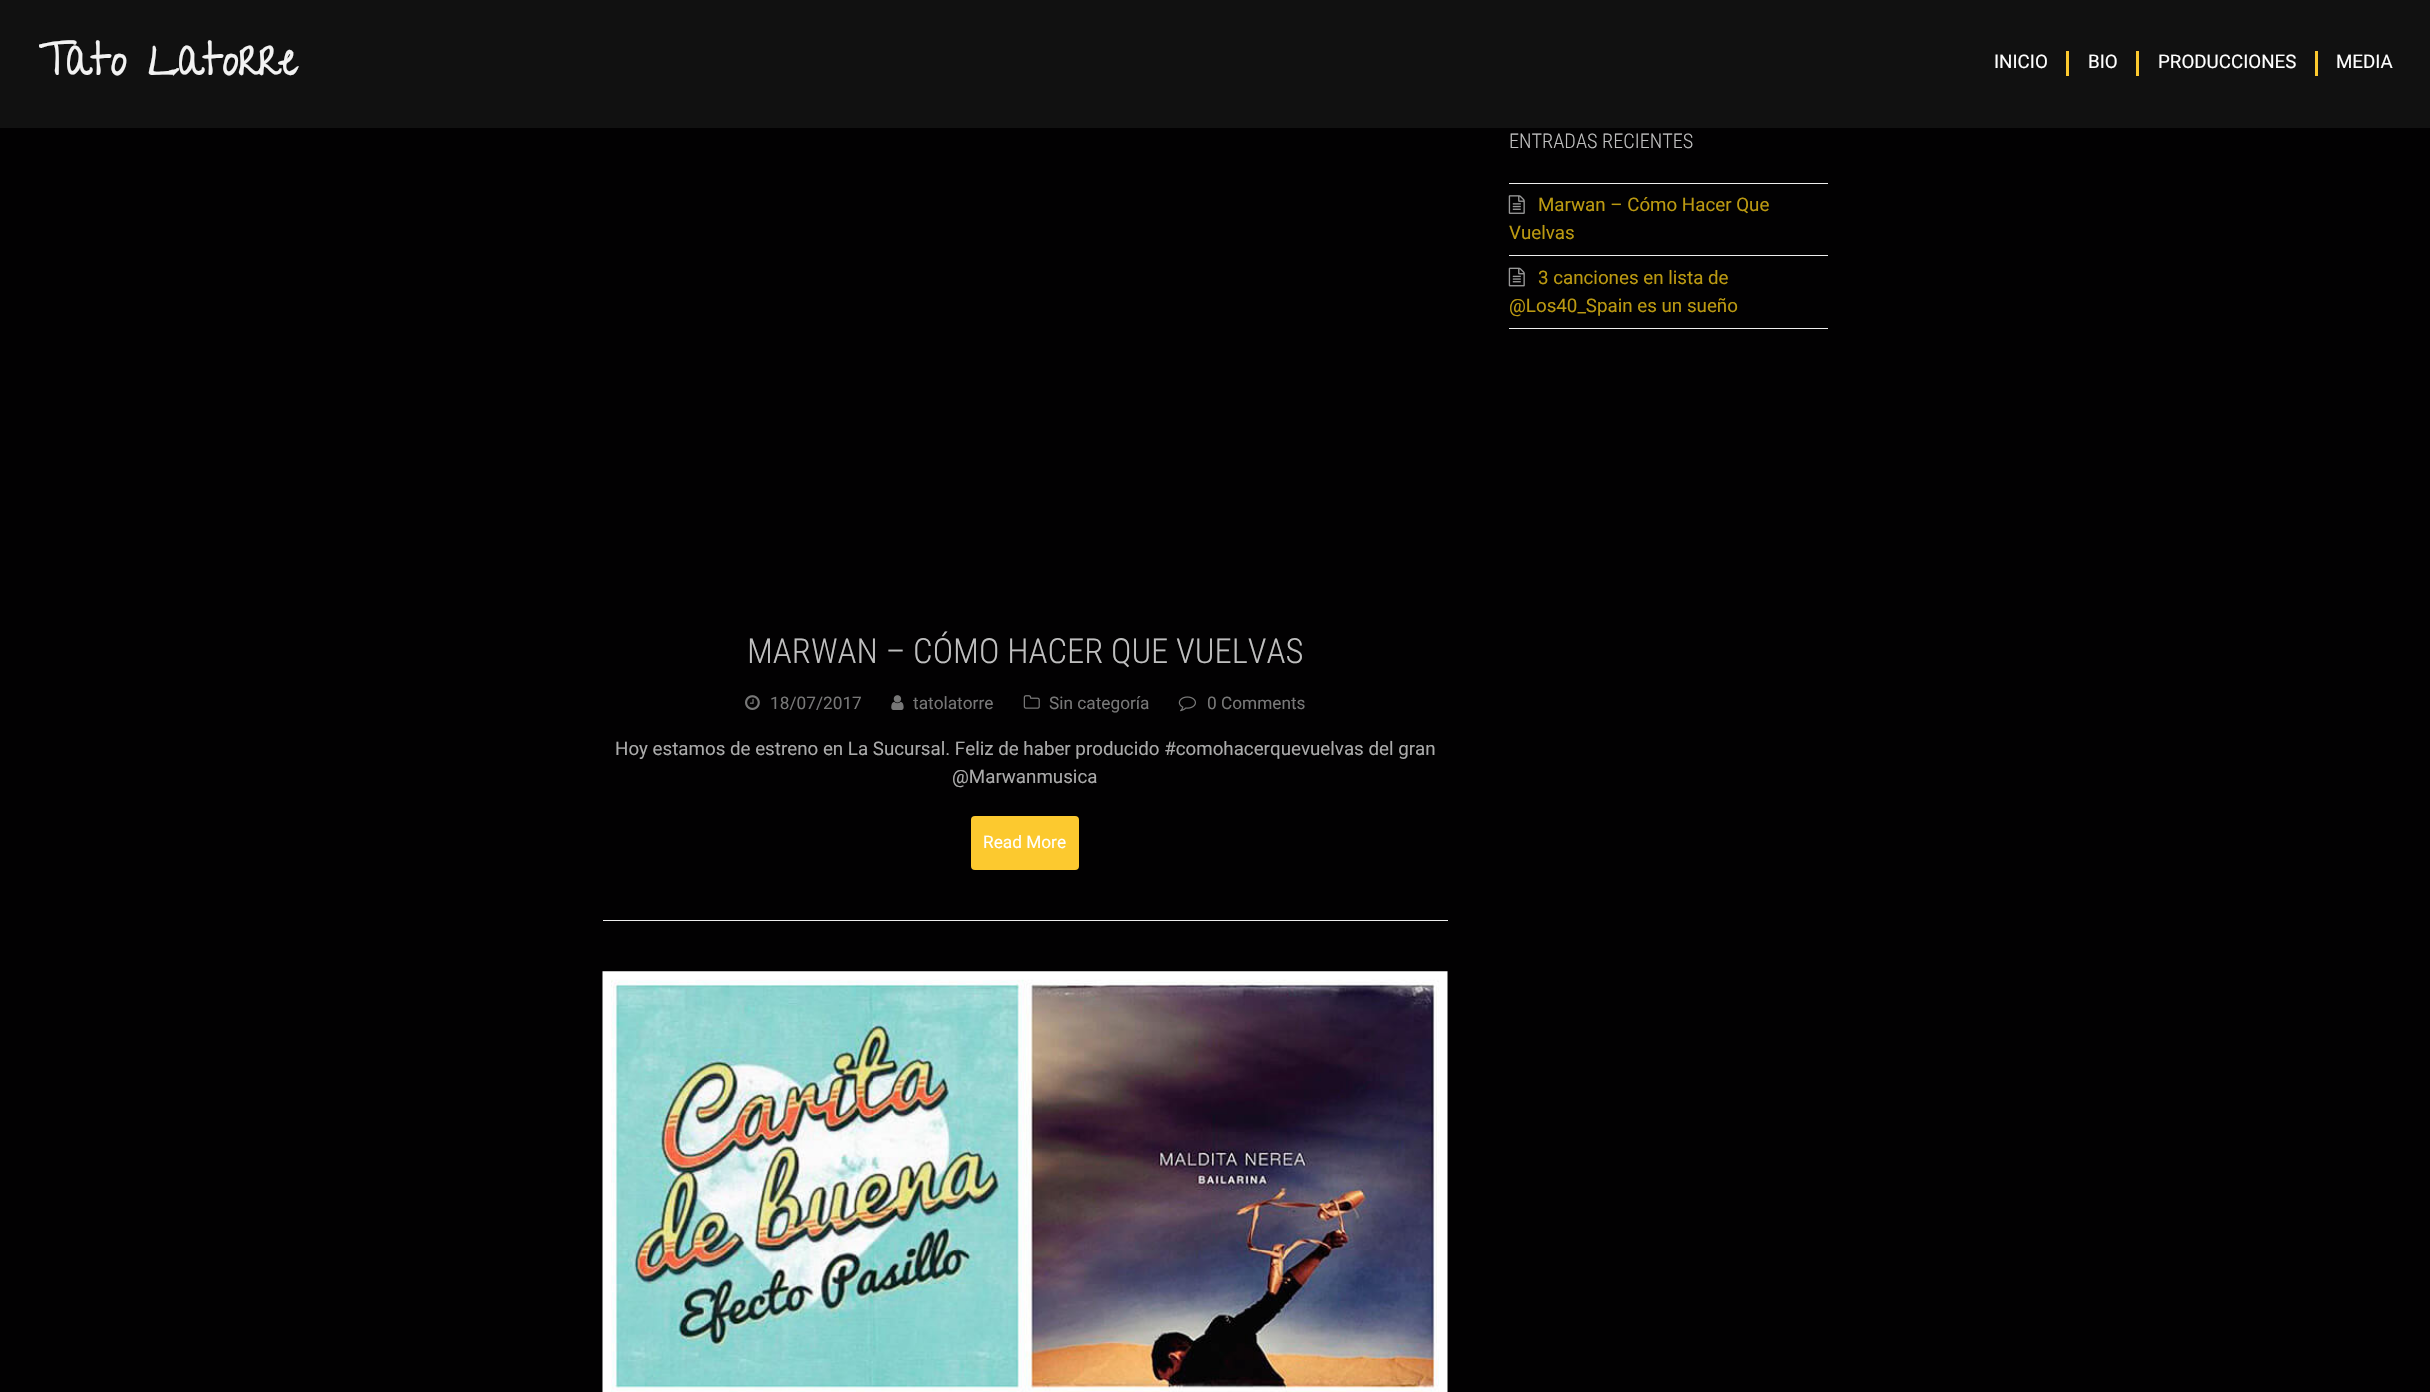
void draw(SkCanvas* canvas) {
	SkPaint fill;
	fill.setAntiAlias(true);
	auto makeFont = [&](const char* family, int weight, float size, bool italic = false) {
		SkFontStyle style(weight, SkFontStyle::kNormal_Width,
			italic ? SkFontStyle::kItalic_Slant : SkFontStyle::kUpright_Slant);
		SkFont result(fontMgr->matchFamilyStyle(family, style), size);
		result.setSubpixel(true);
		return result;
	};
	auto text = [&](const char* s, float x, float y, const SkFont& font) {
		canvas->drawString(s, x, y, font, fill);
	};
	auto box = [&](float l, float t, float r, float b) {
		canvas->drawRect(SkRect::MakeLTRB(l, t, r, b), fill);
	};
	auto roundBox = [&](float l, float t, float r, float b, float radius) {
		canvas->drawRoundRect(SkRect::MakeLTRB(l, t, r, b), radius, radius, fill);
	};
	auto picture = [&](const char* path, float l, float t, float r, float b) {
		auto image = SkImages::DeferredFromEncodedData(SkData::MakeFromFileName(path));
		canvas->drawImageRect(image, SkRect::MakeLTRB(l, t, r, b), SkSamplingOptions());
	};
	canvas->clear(0xFF020102);
	fill.setColor(0xFF111111);
	box(0, 0, 2430, 128);
	fill.setColor(0xFFFCC92F);
	box(2066, 51, 2069, 76);
	box(2136, 51, 2139, 76);
	box(2315, 51, 2318, 76);
	fill.setColor(0xFFEEEEEE);
	box(1509, 183, 1828, 184);
	box(1509, 255, 1828, 256);
	picture("image0.png", 1508, 195, 1525, 214);
	box(1509, 328, 1828, 329);
	picture("image1.png", 1508, 267, 1525, 287);
	box(603, 920, 1448, 921);
	picture("image2.png", 745, 695, 760, 710);
	picture("image3.png", 891, 695, 904, 710);
	picture("image4.png", 1023, 695, 1040, 709);
	picture("image5.png", 1178, 696, 1196, 712);
	fill.setColor(0xFFFCC92F);
	roundBox(971, 816, 1079, 870, 4);
	picture("image6.png", 602, 971, 1448, 1392);
	auto font1 = makeFont("Give You Glory", 700, 45);
	fill.setColor(0xFFF2F2F2);
	text("Tato Latorre", 38, 75, font1);
	auto font2 = makeFont("Roboto", 400, 18.75f);
	fill.setColor(0xFFFFFFFF);
	text("INICIO", 1994, 68, font2);
	text("BIO", 2088, 68, font2);
	text("PRODUCCIONES", 2158, 68, font2);
	text("MEDIA", 2336, 68, font2);
	auto font3 = makeFont("Roboto Condensed", 300, 20.25f);
	fill.setColor(0xFFBFBFBF);
	text("ENTRADAS RECIENTES", 1509, 148, font3);
	fill.setColor(0xFFBB9911);
	text("Marwan – Cómo Hacer Que", 1538, 211, font2);
	text("Vuelvas", 1509, 239, font2);
	text("3 canciones en lista de", 1538, 284, font2);
	text("@Los40_Spain es un sueño", 1509, 312, font2);
	auto font4 = makeFont("Roboto Condensed", 300, 34.6f);
	fill.setColor(0xFFBFBFBF);
	text("MARWAN – CÓMO HACER QUE VUELVAS", 747, 663, font4);
	auto font5 = makeFont("Roboto", 400, 17.25f);
	fill.setColor(0xFF777777);
	text("18/07/2017", 770, 709, font5);
	text("tatolatorre", 913, 709, font5);
	text("Sin categoría", 1049, 709, font5);
	text("0 Comments", 1207, 709, font5);
	fill.setColor(0xFFAAAAAA);
	text("Hoy estamos de estreno en La Sucursal. Feliz de haber producido #comohacerquevuelvas del gran", 615, 755, font2);
	text("@Marwanmusica", 952, 783, font2);
	fill.setColor(0xFFFFFFFF);
	text("Read More", 983, 848, font5);
}
